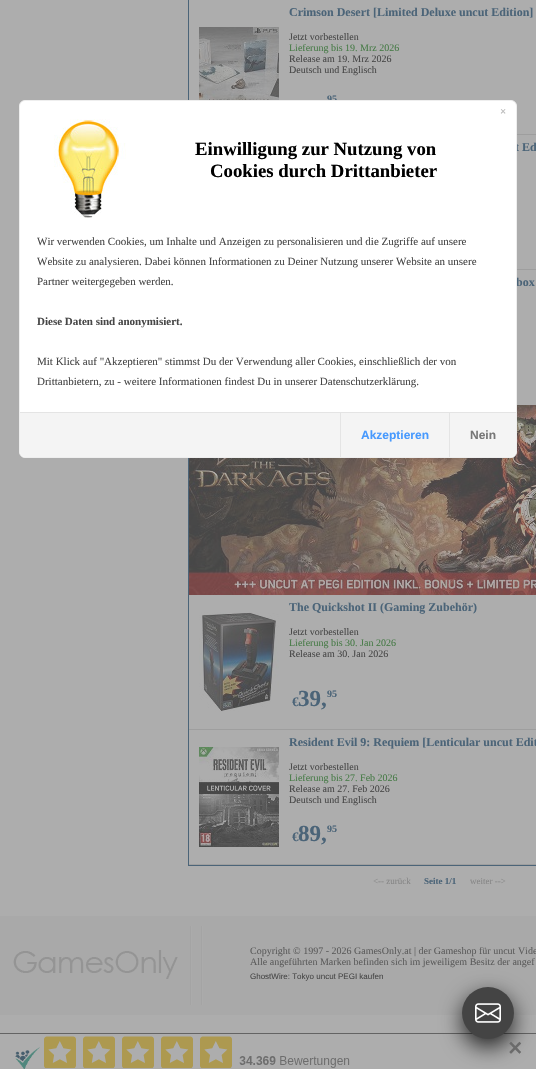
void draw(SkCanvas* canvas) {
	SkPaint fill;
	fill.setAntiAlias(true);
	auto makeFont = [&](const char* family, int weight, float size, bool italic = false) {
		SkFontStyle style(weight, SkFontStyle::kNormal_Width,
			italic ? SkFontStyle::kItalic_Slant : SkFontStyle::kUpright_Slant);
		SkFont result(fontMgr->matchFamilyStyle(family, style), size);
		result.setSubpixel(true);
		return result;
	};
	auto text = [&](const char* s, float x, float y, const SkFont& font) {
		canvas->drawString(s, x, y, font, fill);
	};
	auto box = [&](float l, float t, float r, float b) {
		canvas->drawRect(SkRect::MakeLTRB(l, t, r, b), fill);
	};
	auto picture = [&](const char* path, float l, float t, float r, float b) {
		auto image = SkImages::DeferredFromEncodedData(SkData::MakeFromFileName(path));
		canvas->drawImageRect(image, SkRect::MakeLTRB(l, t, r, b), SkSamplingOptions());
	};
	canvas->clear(0xFFADADAD);
	fill.setStyle(SkPaint::kStroke_Style);
	fill.setStrokeWidth(1);
	fill.setColor(0xFF4B6478);
	canvas->drawRect(SkRect::MakeLTRB(188.5f, -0.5f, 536.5f, 865.5f), fill);
	fill.setStyle(SkPaint::kFill_Style);
	fill.setColor(0xFF9E9E9E);
	box(517, 134, 536, 135);
	picture("image0.png", 199, 27, 279, 100);
	box(517, 269, 536, 270);
	picture("image1.png", 189, 405, 536, 595);
	box(189, 729, 536, 730);
	picture("image2.png", 199, 612, 279, 712);
	box(189, 864, 536, 865);
	picture("image3.png", 199, 747, 279, 847);
	fill.setColor(0xFFA9A9A9);
	box(0, 916, 536, 1015);
	picture("image4.png", 13, 950, 178, 979);
	picture("image5.png", 190, 926, 203, 1005);
	picture("image8.png", 0, 1033, 536, 1069);
	fill.setColor(0xCC000000);
	fill.setMaskFilter(SkMaskFilter::MakeBlur(kNormal_SkBlurStyle, 11));
	canvas->drawRoundRect(SkRect::MakeLTRB(462, 995, 514, 1047), 26, 26, fill);
	fill.setMaskFilter(nullptr);
	fill.setColor(0xFF444444);
	canvas->drawCircle(488, 1013, 26, fill);
	picture("image7.png", 475, 1003, 501, 1023);
	auto font1 = makeFont("Liberation Serif", 700, 12);
	fill.setColor(0xFF4B6478);
	text("Crimson Desert [Limited Deluxe uncut Edition]", 289, 16, font1);
	auto font2 = makeFont("Liberation Serif", 400, 10);
	fill.setColor(0xFF474747);
	text("Jetzt vorbestellen", 289, 40, font2);
	fill.setColor(0xFF477B47);
	text("Lieferung bis 19. Mrz 2026", 289, 51, font2);
	fill.setColor(0xFF474747);
	text("Release am 19. Mrz 2026", 289, 62, font2);
	text("Deutsch und Englisch", 289, 73, font2);
	auto font3 = makeFont("Liberation Serif", 700, 10);
	fill.setColor(0xFF4B6478);
	text("95", 327, 102, font3);
	text("t Ed", 515, 151, font1);
	text("box", 516, 286, font1);
	text("The Quickshot II (Gaming Zubehör)", 289, 611, font1);
	fill.setColor(0xFF474747);
	text("Jetzt vorbestellen", 289, 635, font2);
	fill.setColor(0xFF477B47);
	text("Lieferung bis 30. Jan 2026", 289, 646, font2);
	fill.setColor(0xFF474747);
	text("Release am 30. Jan 2026", 289, 657, font2);
	auto font4 = makeFont("Liberation Serif", 700, 23);
	fill.setColor(0xFF4B6478);
	text("39,", 298, 706, font4);
	text("95", 327, 697, font3);
	auto font5 = makeFont("Liberation Serif", 700, 13);
	text("€", 292, 706, font5);
	text("Resident Evil 9: Requiem [Lenticular uncut Edit", 289, 746, font1);
	fill.setColor(0xFF474747);
	text("Jetzt vorbestellen", 289, 770, font2);
	fill.setColor(0xFF477B47);
	text("Lieferung bis 27. Feb 2026", 289, 781, font2);
	fill.setColor(0xFF474747);
	text("Release am 27. Feb 2026", 289, 792, font2);
	text("Deutsch und Englisch", 289, 803, font2);
	fill.setColor(0xFF4B6478);
	text("89,", 298, 841, font4);
	text("95", 327, 832, font3);
	text("€", 292, 841, font5);
	auto font6 = makeFont("Liberation Serif", 400, 9);
	fill.setColor(0xFF868686);
	text("<-- zurück", 373, 884, font6);
	auto font7 = makeFont("Liberation Serif", 700, 9);
	fill.setColor(0xFF4B6478);
	text("Seite 1/1", 424, 884, font7);
	fill.setColor(0xFF868686);
	text("weiter -->", 470, 884, font6);
	fill.setColor(0xFF5C5C5C);
	text("Copyright © 1997 - 2026 GamesOnly.at | der Gameshop für uncut Vide", 250, 954, font2);
	text("Alle angeführten Marken befinden sich im jeweiligem Besitz der angef", 250, 965, font2);
	auto font8 = makeFont("Liberation Sans", 400, 8);
	fill.setColor(0xFF474747);
	text("GhostWire: Tokyo uncut PEGI kaufen", 250, 979, font8);
	fill.setColor(0xFFFFFFFF);
	canvas->drawRoundRect(SkRect::MakeLTRB(19.5f, 100.5f, 516.5f, 457.5f), 5.5f, 5.5f, fill);
	fill.setStyle(SkPaint::kStroke_Style);
	fill.setColor(0xFFEEEEEE);
	canvas->drawRoundRect(SkRect::MakeLTRB(19.5f, 100.5f, 516.5f, 457.5f), 5.5f, 5.5f, fill);
	auto font9 = makeFont("Liberation Serif", 700, 11);
	fill.setStyle(SkPaint::kFill_Style);
	fill.setColor(0xFFBBBBBB);
	text("×", 500, 115, font9);
	picture("image6.png", 54, 119, 126, 218);
	auto font10 = makeFont("Liberation Serif", 700, 18.75f);
	fill.setColor(0xFF000000);
	text("Einwilligung zur Nutzung von", 195, 155, font10);
	text("Cookies durch Drittanbieter", 210, 177, font10);
	auto font11 = makeFont("Liberation Serif", 400, 11);
	fill.setColor(0xFF474747);
	text("Wir verwenden Cookies, um Inhalte und Anzeigen zu personalisieren und die Zugriffe auf unsere", 37, 245, font11);
	text("Website zu analysieren. Dabei können Informationen zu Deiner Nutzung unserer Website an unsere", 37, 265, font11);
	text("Partner weitergegeben werden.", 37, 285, font11);
	text("Diese Daten sind anonymisiert.", 37, 325, font9);
	text("Mit Klick auf \"Akzeptieren\" stimmst Du der Verwendung aller Cookies, einschließlich der von", 37, 365, font11);
	text("Drittanbietern, zu - weitere Informationen findest Du in unserer Datenschutzerklärung.", 37, 385, font11);
	fill.setColor(0xFFF4F4F4);
	canvas->drawPath(SkPathBuilder().moveTo(20, 412).lineTo(516, 412).lineTo(516, 451).cubicTo(516, 454.5f, 513.5f, 457, 510, 457).lineTo(26, 457).cubicTo(22.5f, 457, 20, 454.5f, 20, 451).close().detach(), fill);
	fill.setColor(0xFFE4E4E4);
	box(20, 412, 516, 413);
	box(340, 413, 341, 457);
	auto font12 = makeFont("Liberation Sans", 700, 12);
	fill.setColor(0xFF489AFE);
	text("Akzeptieren", 361, 439, font12);
	fill.setColor(0xFFE4E4E4);
	box(449, 413, 450, 457);
	fill.setColor(0xFF777777);
	text("Nein", 470, 439, font12);
	auto font13 = makeFont("DejaVu Sans", 700, 19);
	fill.setColor(0xFF6B6B6B);
	text("✕", 507, 1055, font13);
}
